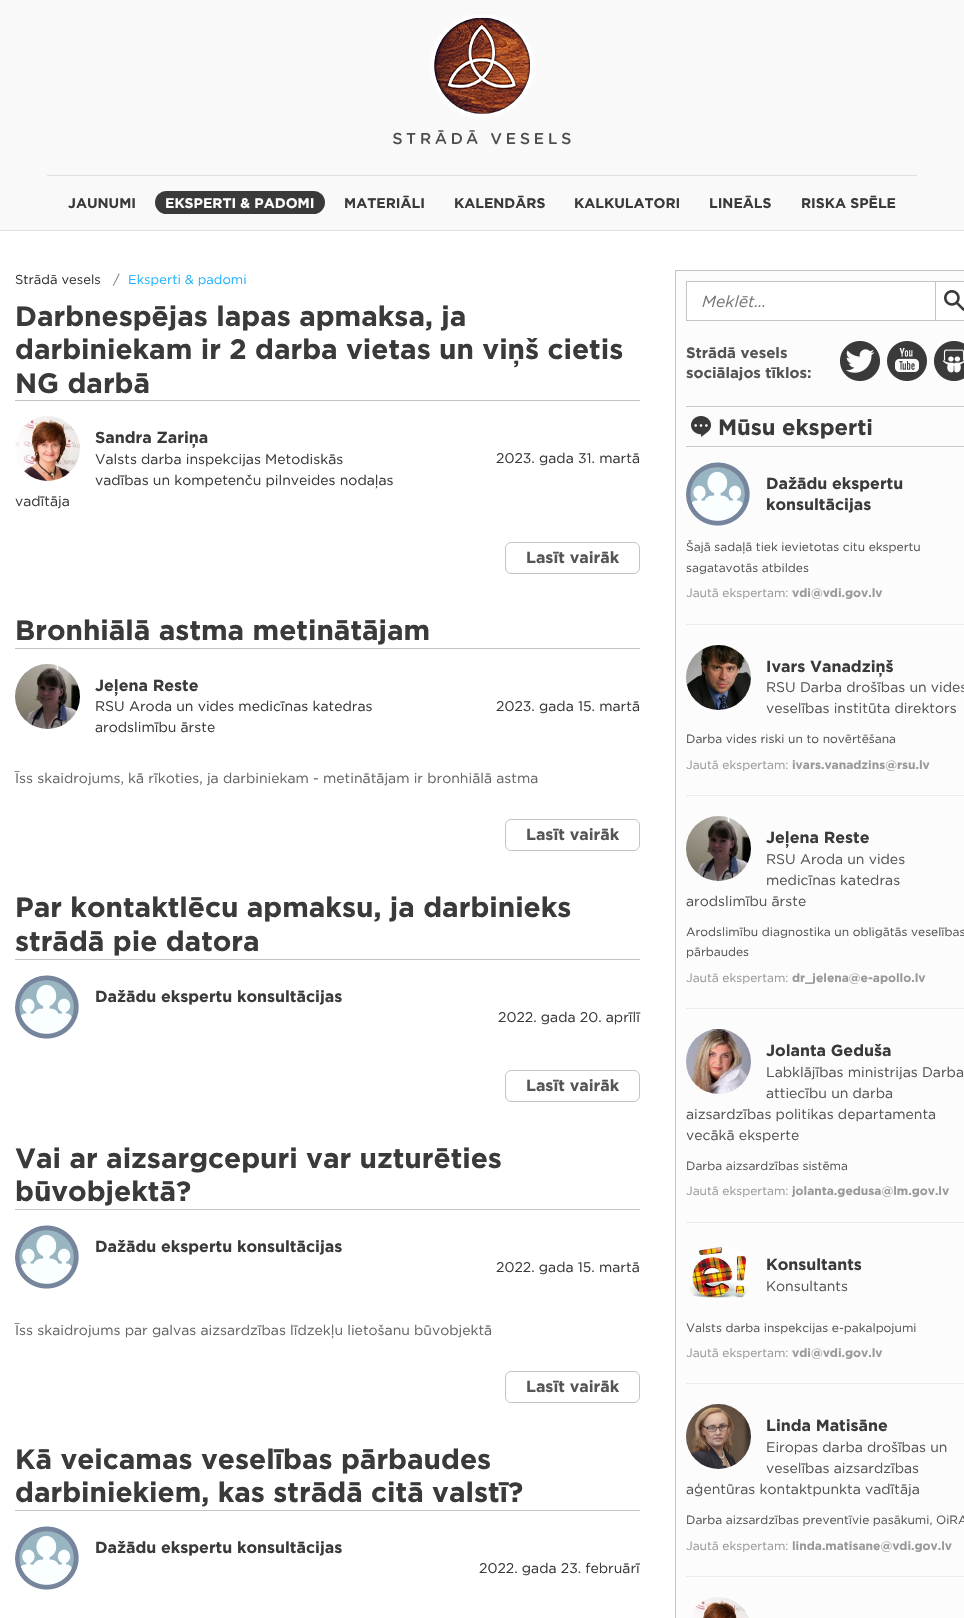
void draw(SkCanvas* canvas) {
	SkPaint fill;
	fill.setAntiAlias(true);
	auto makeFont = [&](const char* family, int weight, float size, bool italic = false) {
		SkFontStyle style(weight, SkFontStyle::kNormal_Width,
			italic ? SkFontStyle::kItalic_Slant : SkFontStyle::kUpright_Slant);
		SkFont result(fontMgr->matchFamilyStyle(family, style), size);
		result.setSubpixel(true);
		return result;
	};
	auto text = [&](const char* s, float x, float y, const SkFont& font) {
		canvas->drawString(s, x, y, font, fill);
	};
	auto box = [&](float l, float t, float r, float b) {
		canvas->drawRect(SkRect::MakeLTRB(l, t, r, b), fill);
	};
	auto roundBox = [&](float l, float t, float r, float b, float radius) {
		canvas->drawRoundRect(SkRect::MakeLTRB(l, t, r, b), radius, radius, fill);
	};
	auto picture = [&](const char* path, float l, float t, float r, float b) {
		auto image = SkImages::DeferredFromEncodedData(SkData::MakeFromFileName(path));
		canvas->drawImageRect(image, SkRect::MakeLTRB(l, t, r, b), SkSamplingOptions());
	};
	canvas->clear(0xFFFFFFFF);
	fill.setColor(0xFFF9F9F9);
	box(0, 0, 964, 230);
	fill.setColor(0xFFE0E0E0);
	box(0, 230, 964, 231);
	picture("image0.png", 393, 15, 571, 145);
	box(47, 175, 917, 176);
	fill.setColor(0xFF3A3A3A);
	roundBox(155, 191, 325, 214, 11.5f);
	fill.setColor(0xFFC4C4C4);
	box(15, 400, 640, 401);
	picture("image1.png", 15, 416, 80, 481);
	fill.setStyle(SkPaint::kStroke_Style);
	fill.setStrokeWidth(1);
	canvas->drawRoundRect(SkRect::MakeLTRB(505.5f, 542.5f, 639.5f, 573.5f), 5.5f, 5.5f, fill);
	fill.setStyle(SkPaint::kFill_Style);
	box(15, 648, 640, 649);
	picture("image2.png", 15, 664, 80, 729);
	fill.setStyle(SkPaint::kStroke_Style);
	canvas->drawRoundRect(SkRect::MakeLTRB(505.5f, 819.5f, 639.5f, 850.5f), 5.5f, 5.5f, fill);
	fill.setStyle(SkPaint::kFill_Style);
	box(15, 959, 640, 960);
	picture("image3.png", 15, 975, 79, 1039);
	fill.setStyle(SkPaint::kStroke_Style);
	canvas->drawRoundRect(SkRect::MakeLTRB(505.5f, 1070.5f, 639.5f, 1101.5f), 5.5f, 5.5f, fill);
	fill.setStyle(SkPaint::kFill_Style);
	box(15, 1209, 640, 1210);
	picture("image4.png", 15, 1225, 79, 1289);
	fill.setStyle(SkPaint::kStroke_Style);
	canvas->drawRoundRect(SkRect::MakeLTRB(505.5f, 1371.5f, 639.5f, 1402.5f), 5.5f, 5.5f, fill);
	fill.setStyle(SkPaint::kFill_Style);
	box(15, 1510, 640, 1511);
	picture("image5.png", 15, 1526, 79, 1590);
	fill.setColor(0xFFFCFCFC);
	canvas->drawRect(SkRect::MakeLTRB(675.5f, 270.5f, 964.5f, 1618.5f), fill);
	fill.setStyle(SkPaint::kStroke_Style);
	fill.setColor(0xFFC4C4C4);
	canvas->drawRect(SkRect::MakeLTRB(675.5f, 270.5f, 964.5f, 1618.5f), fill);
	fill.setStyle(SkPaint::kFill_Style);
	fill.setColor(0xFFFFFFFF);
	canvas->drawRect(SkRect::MakeLTRB(686.5f, 281.5f, 935.5f, 320.5f), fill);
	fill.setStyle(SkPaint::kStroke_Style);
	fill.setColor(0xFFC4C4C4);
	canvas->drawRect(SkRect::MakeLTRB(686.5f, 281.5f, 935.5f, 320.5f), fill);
	fill.setStyle(SkPaint::kFill_Style);
	fill.setColor(0xFFFFFFFF);
	box(943, 289, 964, 313);
	picture("image6.png", 944, 290, 964, 311);
	fill.setStyle(SkPaint::kStroke_Style);
	fill.setStrokeWidth(7);
	canvas->drawRect(SkRect::MakeLTRB(939.5f, 285.5f, 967.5f, 316.5f), fill);
	fill.setStrokeWidth(1);
	fill.setColor(0xFFC4C4C4);
	canvas->drawRect(SkRect::MakeLTRB(935.5f, 281.5f, 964.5f, 320.5f), fill);
	picture("image7.png", 840, 341, 880, 381);
	picture("image8.png", 887, 341, 927, 381);
	picture("image9.png", 934, 341, 964, 381);
	fill.setStyle(SkPaint::kFill_Style);
	fill.setColor(0xFFCACACA);
	box(686, 406, 964, 407);
	box(686, 446, 964, 447);
	picture("image10.png", 691, 416, 711, 437);
	fill.setColor(0xFFEBEBEB);
	box(686, 624, 964, 625);
	picture("image11.png", 686, 462, 750, 526);
	box(686, 795, 964, 796);
	picture("image12.png", 686, 645, 751, 710);
	box(686, 1008, 964, 1009);
	picture("image13.png", 686, 816, 751, 881);
	box(686, 1222, 964, 1223);
	picture("image14.png", 686, 1029, 751, 1094);
	box(686, 1383, 964, 1384);
	picture("image15.png", 689, 1247, 748, 1298);
	box(686, 1576, 964, 1577);
	picture("image16.png", 686, 1404, 751, 1469);
	picture("image17.png", 692, 1597, 749, 1618);
	auto font1 = makeFont("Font", 700, 14);
	fill.setColor(0xFF3A3A3A);
	text("JAUNUMI", 68, 208, font1);
	fill.setColor(0xFFFFFFFF);
	text("EKSPERTI & PADOMI", 165, 208, font1);
	fill.setColor(0xFF3A3A3A);
	text("MATERIĀLI", 344, 208, font1);
	text("KALENDĀRS", 454, 208, font1);
	text("KALKULATORI", 574, 208, font1);
	text("LINEĀLS", 709, 208, font1);
	text("RISKA SPĒLE", 801, 208, font1);
	auto font2 = makeFont("Font", 400, 13);
	fill.setColor(0xFF333333);
	text("Strādā vesels", 15, 284, font2);
	fill.setColor(0xFF777777);
	text("/", 113, 284, font2);
	fill.setColor(0xFF24B4FF);
	text("Eksperti & padomi", 128, 284, font2);
	auto font3 = makeFont("Font", 700, 28);
	fill.setColor(0xFF3A3A3A);
	text("Darbnespējas lapas apmaksa, ja", 15, 326, font3);
	text("darbiniekam ir 2 darba vietas un viņš cietis", 15, 359, font3);
	text("NG darbā", 15, 393, font3);
	auto font4 = makeFont("Font", 700, 16);
	text("Sandra Zariņa", 95, 443, font4);
	auto font5 = makeFont("Font", 400, 14);
	text("Valsts darba inspekcijas Metodiskās", 95, 464, font5);
	text("vadības un kompetenču pilnveides nodaļas", 95, 485, font5);
	text("vadītāja", 15, 506, font5);
	text("2023. gada 31. martā", 496, 463, font5);
	fill.setColor(0xFF555555);
	text("Lasīt vairāk", 526, 563, font4);
	fill.setColor(0xFF3A3A3A);
	text("Bronhiālā astma metinātājam", 15, 640, font3);
	text("Jeļena Reste", 95, 691, font4);
	text("RSU Aroda un vides medicīnas katedras", 95, 711, font5);
	text("arodslimību ārste", 95, 732, font5);
	text("2023. gada 15. martā", 496, 711, font5);
	fill.setColor(0xFF666666);
	text("Īss skaidrojums, kā rīkoties, ja darbiniekam - metinātājam ir bronhiālā astma", 15, 783, font5);
	fill.setColor(0xFF555555);
	text("Lasīt vairāk", 526, 840, font4);
	fill.setColor(0xFF3A3A3A);
	text("Par kontaktlēcu apmaksu, ja darbinieks", 15, 917, font3);
	text("strādā pie datora", 15, 951, font3);
	text("Dažādu ekspertu konsultācijas", 95, 1002, font4);
	text("2022. gada 20. aprīlī", 498, 1022, font5);
	fill.setColor(0xFF555555);
	text("Lasīt vairāk", 526, 1091, font4);
	fill.setColor(0xFF3A3A3A);
	text("Vai ar aizsargcepuri var uzturēties", 15, 1168, font3);
	text("būvobjektā?", 15, 1201, font3);
	text("Dažādu ekspertu konsultācijas", 95, 1252, font4);
	text("2022. gada 15. martā", 496, 1272, font5);
	fill.setColor(0xFF666666);
	text("Īss skaidrojums par galvas aizsardzības līdzekļu lietošanu būvobjektā", 15, 1335, font5);
	fill.setColor(0xFF555555);
	text("Lasīt vairāk", 526, 1392, font4);
	fill.setColor(0xFF3A3A3A);
	text("Kā veicamas veselības pārbaudes", 15, 1469, font3);
	text("darbiniekiem, kas strādā citā valstī?", 15, 1502, font3);
	text("Dažādu ekspertu konsultācijas", 95, 1553, font4);
	text("2022. gada 23. februārī", 479, 1573, font5);
	auto font6 = makeFont("Font", 400, 16, true);
	fill.setColor(0xFF777777);
	text("Meklēt…", 702, 307, font6);
	auto font7 = makeFont("Font", 700, 15);
	fill.setColor(0xFF555555);
	text("Strādā vesels", 686, 358, font7);
	text("sociālajos tīklos:", 686, 378, font7);
	auto font8 = makeFont("Font", 700, 22);
	fill.setColor(0xFF3A3A3A);
	text("Mūsu eksperti", 718, 435, font8);
	text("Dažādu ekspertu", 766, 489, font4);
	text("konsultācijas", 766, 510, font4);
	auto font9 = makeFont("Font", 400, 12);
	fill.setColor(0xFF555555);
	text("Šajā sadaļā tiek ievietotas citu ekspertu", 686, 551, font9);
	text("sagatavotās atbildes", 686, 572, font9);
	fill.setColor(0xFF999999);
	text("Jautā ekspertam:", 686, 597, font9);
	auto font10 = makeFont("Font", 700, 12);
	text("vdi@vdi.gov.lv", 792, 597, font10);
	fill.setColor(0xFF3A3A3A);
	text("Ivars Vanadziņš", 766, 672, font4);
	fill.setColor(0xFF555555);
	text("RSU Darba drošības un vides", 766, 692, font5);
	text("veselības institūta direktors", 766, 713, font5);
	text("Darba vides riski un to novērtēšana", 686, 743, font9);
	fill.setColor(0xFF999999);
	text("Jautā ekspertam:", 686, 769, font9);
	text("ivars.vanadzins@rsu.lv", 792, 769, font10);
	fill.setColor(0xFF3A3A3A);
	text("Jeļena Reste", 766, 843, font4);
	fill.setColor(0xFF555555);
	text("RSU Aroda un vides", 766, 864, font5);
	text("medicīnas katedras", 766, 885, font5);
	text("arodslimību ārste", 686, 906, font5);
	text("Arodslimību diagnostika un obligātās veselības", 686, 936, font9);
	text("pārbaudes", 686, 956, font9);
	fill.setColor(0xFF999999);
	text("Jautā ekspertam:", 686, 982, font9);
	text("dr_jelena@e-apollo.lv", 792, 982, font10);
	fill.setColor(0xFF3A3A3A);
	text("Jolanta Geduša", 766, 1056, font4);
	fill.setColor(0xFF555555);
	text("Labklājības ministrijas Darba", 766, 1077, font5);
	text("attiecību un darba", 766, 1098, font5);
	text("aizsardzības politikas departamenta", 686, 1119, font5);
	text("vecākā eksperte", 686, 1140, font5);
	text("Darba aizsardzības sistēma", 686, 1170, font9);
	fill.setColor(0xFF999999);
	text("Jautā ekspertam:", 686, 1195, font9);
	text("jolanta.gedusa@lm.gov.lv", 792, 1195, font10);
	fill.setColor(0xFF3A3A3A);
	text("Konsultants", 766, 1270, font4);
	fill.setColor(0xFF555555);
	text("Konsultants", 766, 1291, font5);
	text("Valsts darba inspekcijas e-pakalpojumi", 686, 1332, font9);
	fill.setColor(0xFF999999);
	text("Jautā ekspertam:", 686, 1357, font9);
	text("vdi@vdi.gov.lv", 792, 1357, font10);
	fill.setColor(0xFF3A3A3A);
	text("Linda Matisāne", 766, 1431, font4);
	fill.setColor(0xFF555555);
	text("Eiropas darba drošības un", 766, 1452, font5);
	text("veselības aizsardzības", 766, 1473, font5);
	text("aģentūras kontaktpunkta vadītāja", 686, 1494, font5);
	text("Darba aizsardzības preventīvie pasākumi, OiRA", 686, 1524, font9);
	fill.setColor(0xFF999999);
	text("Jautā ekspertam:", 686, 1550, font9);
	text("linda.matisane@vdi.gov.lv", 792, 1550, font10);
}
